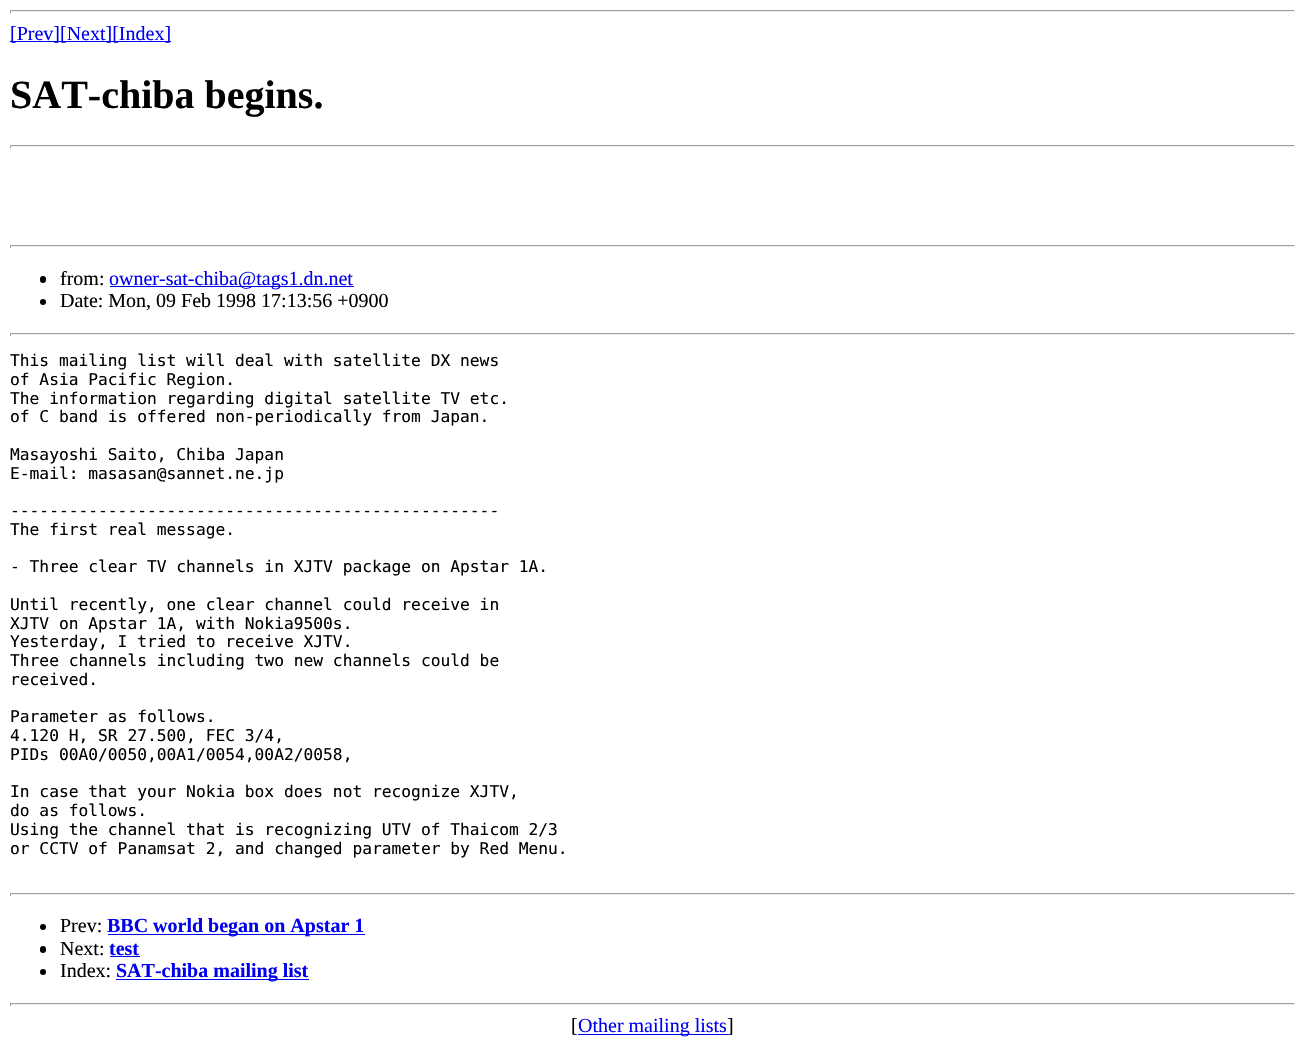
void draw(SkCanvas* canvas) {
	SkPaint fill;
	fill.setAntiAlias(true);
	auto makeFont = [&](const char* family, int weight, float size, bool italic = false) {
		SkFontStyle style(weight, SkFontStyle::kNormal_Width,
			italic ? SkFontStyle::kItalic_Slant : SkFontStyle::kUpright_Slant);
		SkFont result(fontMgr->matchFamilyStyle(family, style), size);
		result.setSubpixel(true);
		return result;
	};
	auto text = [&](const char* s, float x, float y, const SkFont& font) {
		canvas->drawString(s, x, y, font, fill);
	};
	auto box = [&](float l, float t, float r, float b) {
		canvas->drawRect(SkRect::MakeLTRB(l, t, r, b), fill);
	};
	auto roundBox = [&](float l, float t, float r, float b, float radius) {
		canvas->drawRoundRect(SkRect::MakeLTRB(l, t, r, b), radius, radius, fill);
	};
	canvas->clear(0xFFFFFFFF);
	fill.setColor(0xFF9F9F9F);
	box(10, 10, 1295, 11);
	fill.setColor(0xFFEEEEEE);
	box(1294, 10, 1295, 13);
	box(10, 11, 1295, 12);
	fill.setColor(0xFF9F9F9F);
	box(10, 10, 11, 13);
	fill.setColor(0xFF0000EE);
	box(10, 41, 171, 42);
	fill.setColor(0xFF9F9F9F);
	box(10, 145, 1295, 146);
	fill.setColor(0xFFEEEEEE);
	box(1294, 145, 1295, 148);
	box(10, 146, 1295, 147);
	fill.setColor(0xFF9F9F9F);
	box(10, 145, 11, 148);
	box(10, 245, 1295, 246);
	fill.setColor(0xFFEEEEEE);
	box(1294, 245, 1295, 248);
	box(10, 246, 1295, 247);
	fill.setColor(0xFF9F9F9F);
	box(10, 245, 11, 248);
	fill.setColor(0xFF000000);
	roundBox(40, 276, 46, 283, 3);
	fill.setColor(0xFF0000EE);
	box(110, 286, 354, 287);
	fill.setColor(0xFF000000);
	canvas->drawCircle(43, 302, 3, fill);
	fill.setColor(0xFF9F9F9F);
	box(10, 333, 1295, 334);
	fill.setColor(0xFFEEEEEE);
	box(1294, 333, 1295, 336);
	box(10, 334, 1295, 335);
	fill.setColor(0xFF9F9F9F);
	box(10, 333, 11, 336);
	box(10, 893, 1295, 894);
	fill.setColor(0xFFEEEEEE);
	box(1294, 893, 1295, 896);
	box(10, 894, 1295, 895);
	fill.setColor(0xFF9F9F9F);
	box(10, 893, 11, 896);
	fill.setColor(0xFF000000);
	canvas->drawCircle(43, 927, 3, fill);
	fill.setColor(0xFF0000EE);
	box(108, 934, 365, 935);
	fill.setColor(0xFF000000);
	roundBox(40, 946, 46, 953, 3);
	fill.setColor(0xFF0000EE);
	box(110, 956, 140, 957);
	fill.setColor(0xFF000000);
	canvas->drawCircle(43, 972, 3, fill);
	fill.setColor(0xFF0000EE);
	box(116, 979, 309, 980);
	fill.setColor(0xFF9F9F9F);
	box(10, 1003, 1295, 1004);
	fill.setColor(0xFFEEEEEE);
	box(1294, 1003, 1295, 1006);
	box(10, 1004, 1295, 1005);
	fill.setColor(0xFF9F9F9F);
	box(10, 1003, 11, 1006);
	fill.setColor(0xFF0000EE);
	box(578, 1034, 728, 1035);
	auto font1 = makeFont("Liberation Serif", 400, 20);
	text("[Prev][Next][Index]", 10, 40, font1);
	auto font2 = makeFont("Liberation Serif", 700, 40);
	fill.setColor(0xFF000000);
	text("SAT-chiba begins.", 10, 108, font2);
	text("from:", 60, 285, font1);
	fill.setColor(0xFF0000EE);
	text("owner-sat-chiba@tags1.dn.net", 109, 285, font1);
	fill.setColor(0xFF000000);
	text("Date: Mon, 09 Feb 1998 17:13:56 +0900", 60, 307, font1);
	auto font3 = makeFont("DejaVu Sans Mono", 400, 16.25f);
	text("This mailing list will deal with satellite DX news", 10, 366, font3);
	text("of Asia Pacific Region.", 10, 385, font3);
	text("The information regarding digital satellite TV etc.", 10, 404, font3);
	text("of C band is offered non-periodically from Japan.", 10, 422, font3);
	text("Masayoshi Saito, Chiba Japan", 10, 460, font3);
	text("E-mail: masasan@sannet.ne.jp", 10, 479, font3);
	text("--------------------------------------------------", 10, 516, font3);
	text("The first real message.", 10, 535, font3);
	text("- Three clear TV channels in XJTV package on Apstar 1A.", 10, 572, font3);
	text("Until recently, one clear channel could receive in", 10, 610, font3);
	text("XJTV on Apstar 1A, with Nokia9500s.", 10, 629, font3);
	text("Yesterday, I tried to receive XJTV.", 10, 647, font3);
	text("Three channels including two new channels could be", 10, 666, font3);
	text("received.", 10, 685, font3);
	text("Parameter as follows.", 10, 722, font3);
	text("4.120 H, SR 27.500, FEC 3/4,", 10, 741, font3);
	text("PIDs 00A0/0050,00A1/0054,00A2/0058,", 10, 760, font3);
	text("In case that your Nokia box does not recognize XJTV,", 10, 797, font3);
	text("do as follows.", 10, 816, font3);
	text("Using the channel that is recognizing UTV of Thaicom 2/3", 10, 835, font3);
	text("or CCTV of Panamsat 2, and changed parameter by Red Menu.", 10, 854, font3);
	text("Prev:", 60, 932, font1);
	auto font4 = makeFont("Liberation Serif", 700, 20);
	fill.setColor(0xFF0000EE);
	text("BBC world began on Apstar 1", 107, 932, font4);
	fill.setColor(0xFF000000);
	text("Next:", 60, 955, font1);
	fill.setColor(0xFF0000EE);
	text("test", 109, 955, font4);
	fill.setColor(0xFF000000);
	text("Index:", 60, 977, font1);
	fill.setColor(0xFF0000EE);
	text("SAT-chiba mailing list", 116, 977, font4);
	fill.setColor(0xFF000000);
	text("[", 571, 1032, font1);
	fill.setColor(0xFF0000EE);
	text("Other mailing lists", 578, 1032, font1);
	fill.setColor(0xFF000000);
	text("]", 727, 1032, font1);
}
